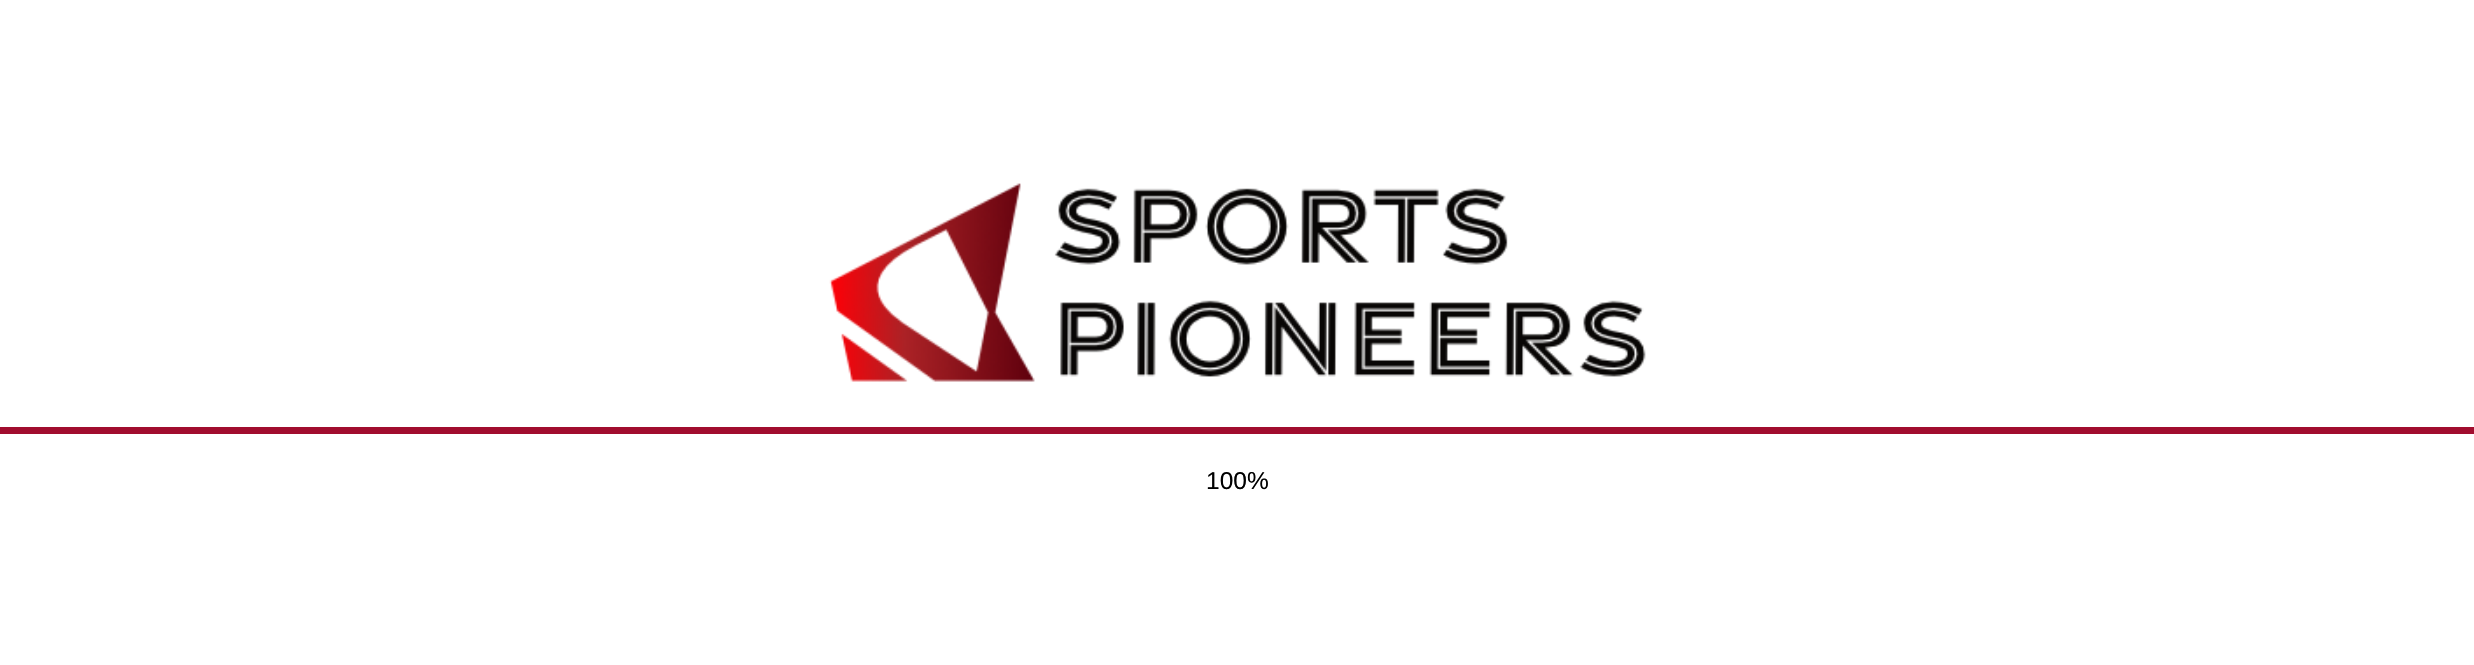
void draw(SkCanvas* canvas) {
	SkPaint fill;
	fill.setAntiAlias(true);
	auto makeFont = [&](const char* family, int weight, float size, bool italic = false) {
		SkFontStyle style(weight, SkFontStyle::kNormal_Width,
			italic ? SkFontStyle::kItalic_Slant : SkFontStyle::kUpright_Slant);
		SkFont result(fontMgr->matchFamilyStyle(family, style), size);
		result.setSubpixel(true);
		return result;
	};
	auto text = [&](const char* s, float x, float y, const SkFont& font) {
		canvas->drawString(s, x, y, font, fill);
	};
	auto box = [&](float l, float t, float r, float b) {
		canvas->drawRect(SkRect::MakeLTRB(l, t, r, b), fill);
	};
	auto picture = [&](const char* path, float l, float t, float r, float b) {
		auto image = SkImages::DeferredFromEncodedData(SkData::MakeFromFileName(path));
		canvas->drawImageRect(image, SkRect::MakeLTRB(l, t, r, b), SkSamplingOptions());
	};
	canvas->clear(0xFFFFFFFF);
	picture("image0.png", 829, 183, 1646, 382);
	fill.setColor(0xFFA10D2E);
	box(0, 427, 2474, 434);
	auto font1 = makeFont("Liberation Sans", 400, 24.5f);
	fill.setColor(0xFF000000);
	text("100%", 1206, 489, font1);
}
